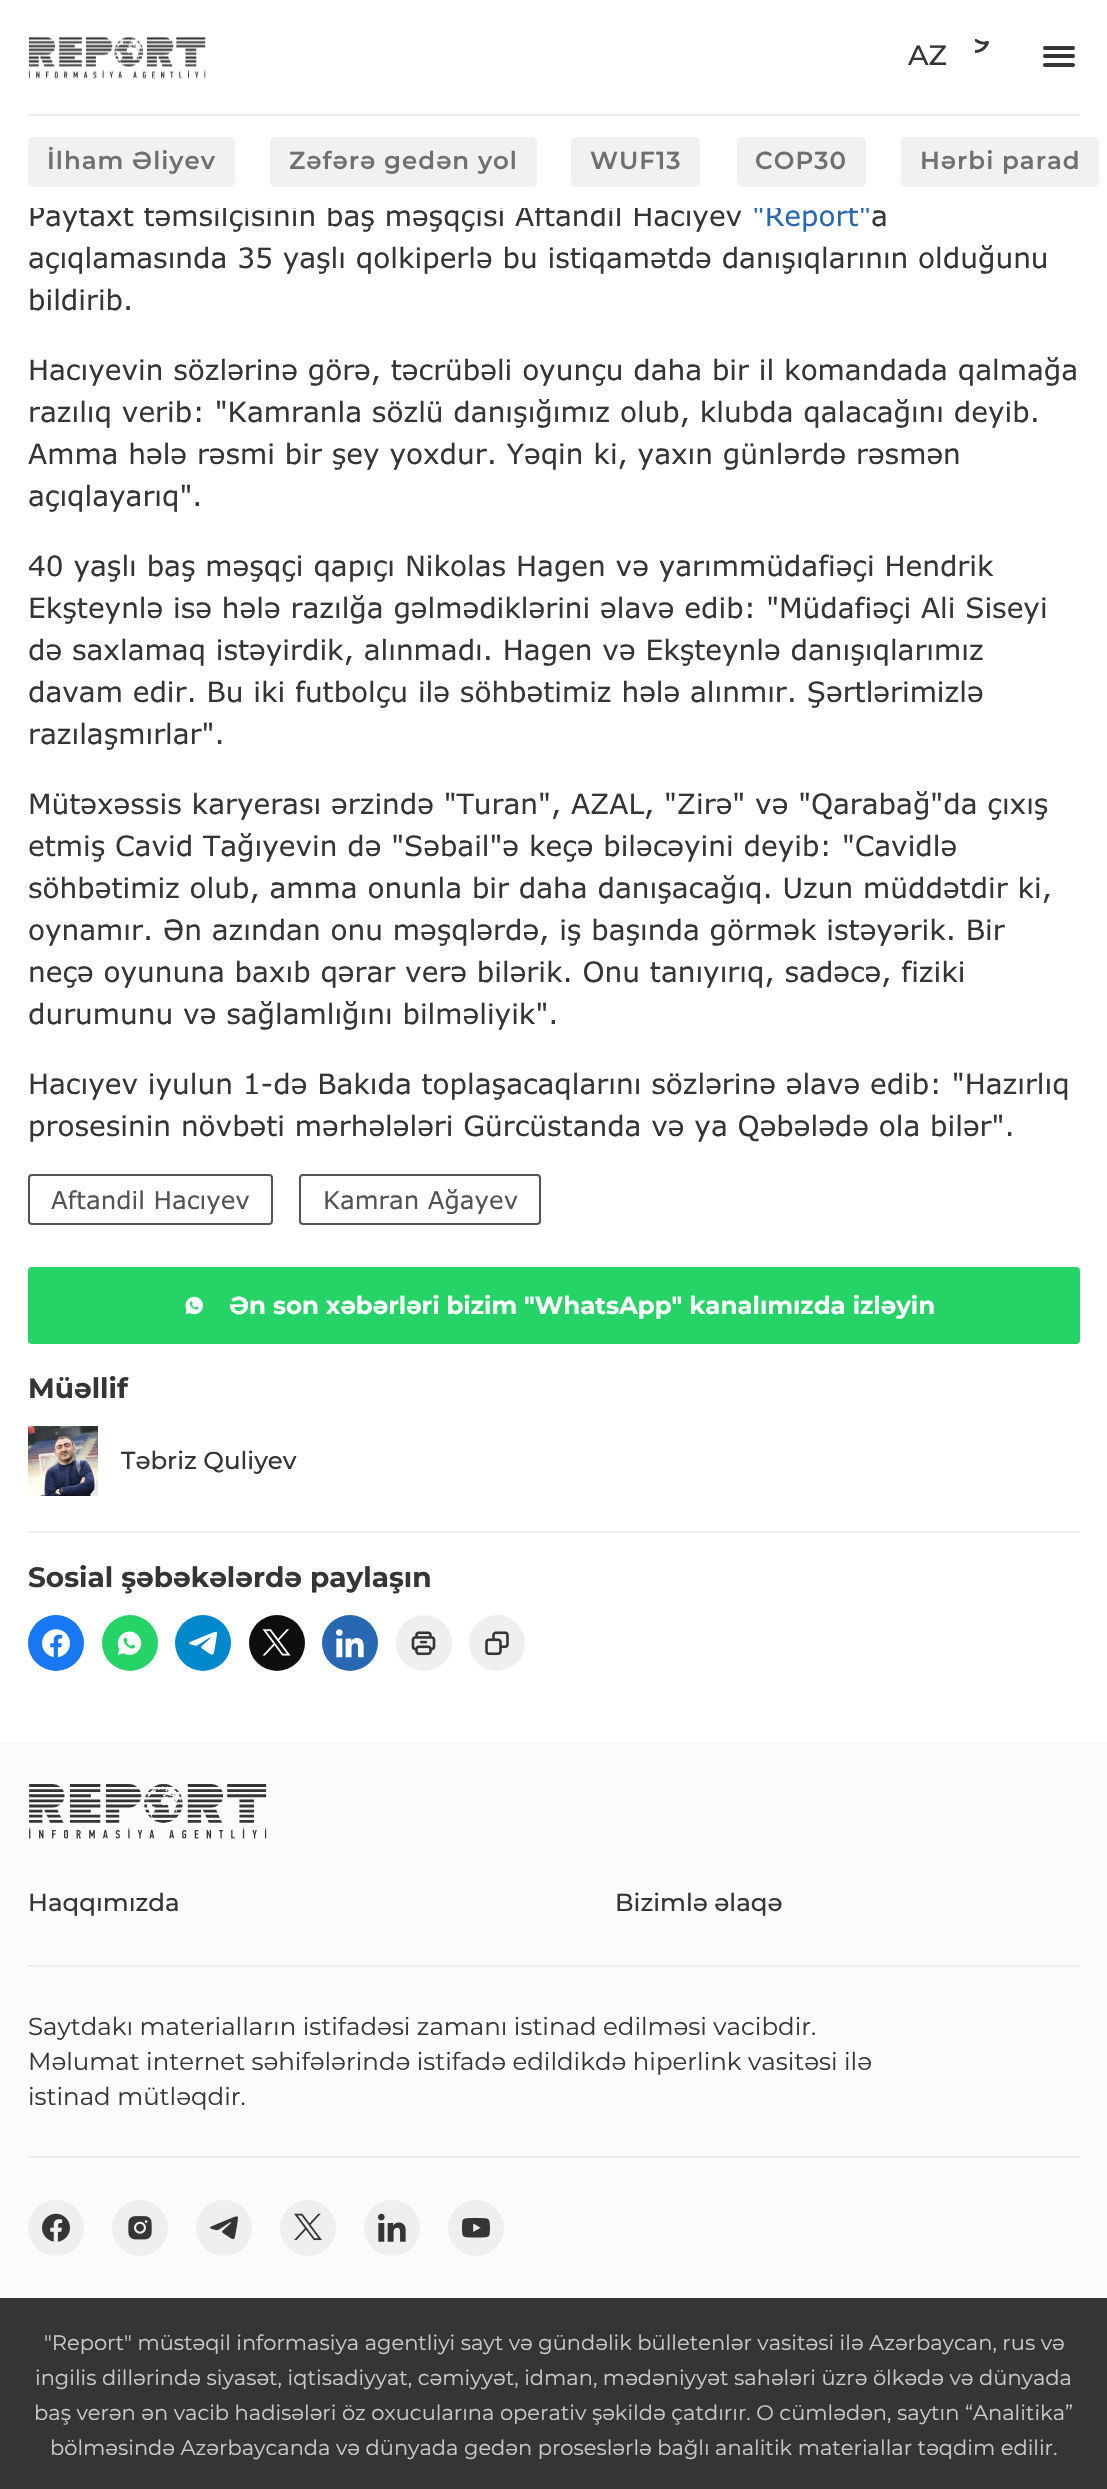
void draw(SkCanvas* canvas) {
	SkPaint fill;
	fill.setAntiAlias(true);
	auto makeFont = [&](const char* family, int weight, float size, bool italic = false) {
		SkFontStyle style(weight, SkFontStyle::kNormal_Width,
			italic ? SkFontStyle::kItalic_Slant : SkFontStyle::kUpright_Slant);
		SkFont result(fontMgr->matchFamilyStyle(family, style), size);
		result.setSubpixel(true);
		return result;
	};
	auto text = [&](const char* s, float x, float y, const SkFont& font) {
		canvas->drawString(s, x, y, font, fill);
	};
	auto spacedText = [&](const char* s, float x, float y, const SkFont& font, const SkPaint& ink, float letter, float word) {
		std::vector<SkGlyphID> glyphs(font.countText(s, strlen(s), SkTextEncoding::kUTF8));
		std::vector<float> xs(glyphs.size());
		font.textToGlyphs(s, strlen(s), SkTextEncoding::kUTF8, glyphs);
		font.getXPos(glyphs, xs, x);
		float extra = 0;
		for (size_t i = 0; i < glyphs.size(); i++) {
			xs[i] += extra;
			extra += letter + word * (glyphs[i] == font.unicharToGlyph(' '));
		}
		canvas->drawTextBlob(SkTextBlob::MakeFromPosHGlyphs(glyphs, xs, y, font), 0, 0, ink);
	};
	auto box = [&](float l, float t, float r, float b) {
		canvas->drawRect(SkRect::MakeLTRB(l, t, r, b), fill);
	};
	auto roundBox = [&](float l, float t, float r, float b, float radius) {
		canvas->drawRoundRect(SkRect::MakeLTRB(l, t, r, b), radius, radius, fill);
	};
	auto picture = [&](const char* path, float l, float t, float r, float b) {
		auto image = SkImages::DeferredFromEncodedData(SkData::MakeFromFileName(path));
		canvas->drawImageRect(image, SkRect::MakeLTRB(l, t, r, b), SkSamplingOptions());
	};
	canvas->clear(0xFFFFFFFF);
	fill.setColor(0xFFEFEFEF);
	box(28, 114, 1080, 116);
	picture("image0.png", 28, 36, 206, 79);
	canvas->save();
	canvas->clipRect(SkRect::MakeLTRB(975, 39, 1010, 74));
	fill.setStyle(SkPaint::kStroke_Style);
	fill.setStrokeWidth(2.9f);
	fill.setStrokeCap(SkPaint::kRound_Cap);
	fill.setStrokeJoin(SkPaint::kRound_Join);
	fill.setColor(0xFF353535);
	canvas->drawPath(SkPathBuilder().moveTo(970.5f, 30).cubicTo(970.5f, 38.5f, 979, 45, 987.5f, 42.5f).cubicTo(985.5f, 48.5f, 979.5f, 52, 973.5f, 51.5f).cubicTo(967, 51, 962.5f, 46, 961.5f, 40).cubicTo(961, 33.5f, 965, 28, 971, 26).lineTo(970.5f, 29.5f).close().detach(), fill);
	canvas->restore();
	fill.setStyle(SkPaint::kFill_Style);
	roundBox(1043, 54, 1075, 58, 2);
	roundBox(1043, 46, 1075, 50, 2);
	roundBox(1043, 63, 1075, 67, 2);
	fill.setColor(0xFFF1F1F1);
	roundBox(28, 137, 235, 187, 5);
	roundBox(270, 137, 537, 187, 5);
	roundBox(571, 137, 700, 187, 5);
	roundBox(737, 137, 866, 187, 5);
	roundBox(901, 137, 1099, 187, 5);
	fill.setStyle(SkPaint::kStroke_Style);
	fill.setStrokeWidth(2);
	fill.setStrokeCap(SkPaint::kButt_Cap);
	fill.setStrokeJoin(SkPaint::kMiter_Join);
	fill.setColor(0xFF535353);
	canvas->drawRoundRect(SkRect::MakeLTRB(29, 1175, 272, 1224), 3, 3, fill);
	canvas->drawRoundRect(SkRect::MakeLTRB(300, 1175, 540, 1224), 3, 3, fill);
	fill.setStyle(SkPaint::kFill_Style);
	fill.setColor(0xFF25D366);
	roundBox(28, 1267, 1080, 1344, 4);
	picture("image1.png", 185, 1296, 203, 1315);
	picture("image2.png", 28, 1426, 98, 1496);
	fill.setColor(0xFFEFEFEF);
	box(28, 1531, 1080, 1533);
	fill.setColor(0xFF1877F2);
	canvas->drawCircle(56, 1643, 28, fill);
	picture("image3.png", 42, 1629, 70, 1658);
	fill.setColor(0xFF25D366);
	canvas->drawCircle(130, 1643, 28, fill);
	picture("image4.png", 117, 1631, 142, 1655);
	fill.setColor(0xFF0088CC);
	canvas->drawCircle(203, 1643, 28, fill);
	picture("image5.png", 189, 1631, 217, 1655);
	fill.setColor(0xFF0E0E0E);
	canvas->drawCircle(277, 1643, 28, fill);
	picture("image6.png", 262, 1629, 291, 1656);
	fill.setColor(0xFF2867B2);
	canvas->drawCircle(350, 1643, 28, fill);
	picture("image7.png", 336, 1629, 364, 1658);
	fill.setColor(0xFFEFEFEF);
	canvas->drawCircle(424, 1643, 28, fill);
	picture("image8.png", 411, 1631, 436, 1656);
	canvas->drawCircle(497, 1643, 28, fill);
	picture("image9.png", 485, 1631, 509, 1656);
	fill.setColor(0xFFFBFBFB);
	box(0, 1741, 1107, 2298);
	fill.setColor(0xFFEFEFEF);
	box(28, 1965, 1080, 1967);
	picture("image10.png", 29, 1783, 267, 1839);
	box(28, 2156, 1080, 2158);
	canvas->drawCircle(56, 2228, 28, fill);
	picture("image11.png", 42, 2213, 70, 2242);
	canvas->drawCircle(140, 2228, 28, fill);
	picture("image12.png", 128, 2216, 152, 2240);
	canvas->drawCircle(224, 2228, 28, fill);
	picture("image13.png", 210, 2216, 238, 2240);
	canvas->drawCircle(308, 2228, 28, fill);
	picture("image14.png", 294, 2213, 322, 2241);
	canvas->drawCircle(392, 2228, 28, fill);
	picture("image15.png", 378, 2213, 406, 2242);
	canvas->drawCircle(476, 2228, 28, fill);
	picture("image16.png", 462, 2217, 490, 2238);
	fill.setColor(0xFF353535);
	box(0, 2298, 1107, 2489);
	auto font1 = makeFont("Montserrat", 500, 28);
	text("AZ", 908, 65, font1);
	auto font2 = makeFont("Montserrat", 600, 24.5f);
	fill.setColor(0xFF707070);
	spacedText("İlham Əliyev", 47, 169, font2, fill, 1, 0);
	spacedText("Zəfərə gedən yol", 289, 169, font2, fill, 1, 0);
	spacedText("WUF13", 590, 169, font2, fill, 1, 0);
	spacedText("COP30", 755, 169, font2, fill, 1, 0);
	spacedText("Hərbi parad", 920, 169, font2, fill, 1, 0);
	auto font3 = makeFont("Verdana", 400, 28);
	fill.setColor(0xFF353535);
	text("Paytaxt təmsilçisinin baş məşqçisi Aftandil Hacıyev", 28, 226, font3);
	fill.setColor(0xFF2867B2);
	text("\"Report\"", 752, 226, font3);
	fill.setColor(0xFFFFFFFF);
	box(30, 204, 869, 208);
	fill.setColor(0xFF353535);
	text("a", 871, 226, font3);
	text("açıqlamasında 35 yaşlı qolkiperlə bu istiqamətdə danışıqlarının olduğunu", 28, 268, font3);
	text("bildirib.", 28, 310, font3);
	text("Hacıyevin sözlərinə görə, təcrübəli oyunçu daha bir il komandada qalmağa", 28, 380, font3);
	text("razılıq verib: \"Kamranla sözlü danışığımız olub, klubda qalacağını deyib.", 28, 422, font3);
	text("Amma hələ rəsmi bir şey yoxdur. Yəqin ki, yaxın günlərdə rəsmən", 28, 464, font3);
	text("açıqlayarıq\".", 28, 506, font3);
	text("40 yaşlı baş məşqçi qapıçı Nikolas Hagen və yarımmüdafiəçi Hendrik", 28, 576, font3);
	text("Ekşteynlə isə hələ razılğa gəlmədiklərini əlavə edib: \"Müdafiəçi Ali Siseyi", 28, 618, font3);
	text("də saxlamaq istəyirdik, alınmadı. Hagen və Ekşteynlə danışıqlarımız", 28, 660, font3);
	text("davam edir. Bu iki futbolçu ilə söhbətimiz hələ alınmır. Şərtlərimizlə", 28, 702, font3);
	text("razılaşmırlar\".", 28, 744, font3);
	text("Mütəxəssis karyerası ərzində \"Turan\", AZAL, \"Zirə\" və \"Qarabağ\"da çıxış", 28, 814, font3);
	text("etmiş Cavid Tağıyevin də \"Səbail\"ə keçə biləcəyini deyib: \"Cavidlə", 28, 856, font3);
	text("söhbətimiz olub, amma onunla bir daha danışacağıq. Uzun müddətdir ki,", 28, 898, font3);
	text("oynamır. Ən azından onu məşqlərdə, iş başında görmək istəyərik. Bir", 28, 940, font3);
	text("neçə oyununa baxıb qərar verə bilərik. Onu tanıyırıq, sadəcə, fiziki", 28, 982, font3);
	text("durumunu və sağlamlığını bilməliyik\".", 28, 1024, font3);
	text("Hacıyev iyulun 1-də Bakıda toplaşacaqlarını sözlərinə əlavə edib: \"Hazırlıq", 28, 1094, font3);
	text("prosesinin növbəti mərhələləri Gürcüstanda və ya Qəbələdə ola bilər\".", 28, 1136, font3);
	auto font4 = makeFont("Verdana", 400, 24.5f);
	fill.setColor(0xFF535353);
	text("Aftandil Hacıyev", 51, 1209, font4);
	text("Kamran Ağayev", 323, 1209, font4);
	auto font5 = makeFont("Montserrat", 700, 24.5f);
	fill.setColor(0xFFFFFFFF);
	text("Ən son xəbərləri bizim \"WhatsApp\" kanalımızda izləyin", 229, 1314, font5);
	auto font6 = makeFont("Montserrat", 700, 28);
	fill.setColor(0xFF353535);
	text("Müəllif", 28, 1398, font6);
	auto font7 = makeFont("Montserrat", 500, 24.5f);
	text("Təbriz Quliyev", 121, 1469, font7);
	text("Sosial şəbəkələrdə paylaşın", 28, 1587, font6);
	text("Haqqımızda", 28, 1911, font7);
	text("Bizimlə əlaqə", 615, 1911, font7);
	auto font8 = makeFont("Montserrat", 400, 24.5f);
	text("Saytdakı materialların istifadəsi zamanı istinad edilməsi vacibdir.", 28, 2035, font8);
	text("Məlumat internet səhifələrində istifadə edildikdə hiperlink vasitəsi ilə", 28, 2070, font8);
	text("istinad mütləqdir.", 28, 2105, font8);
	auto font9 = makeFont("Montserrat", 400, 21);
	fill.setColor(0xFFC9C9C9);
	text("\"Report\" müstəqil informasiya agentliyi sayt və gündəlik bülletenlər vasitəsi ilə Azərbaycan, rus və", 44, 2350, font9);
	text("ingilis dillərində siyasət, iqtisadiyyat, cəmiyyət, idman, mədəniyyət sahələri üzrə ölkədə və dünyada", 35, 2385, font9);
	text("baş verən ən vacib hadisələri öz oxucularına operativ şəkildə çatdırır. O cümlədən, saytın “Analitika”", 34, 2420, font9);
	text("bölməsində Azərbaycanda və dünyada gedən proseslərlə bağlı analitik materiallar təqdim edilir.", 50, 2455, font9);
}
